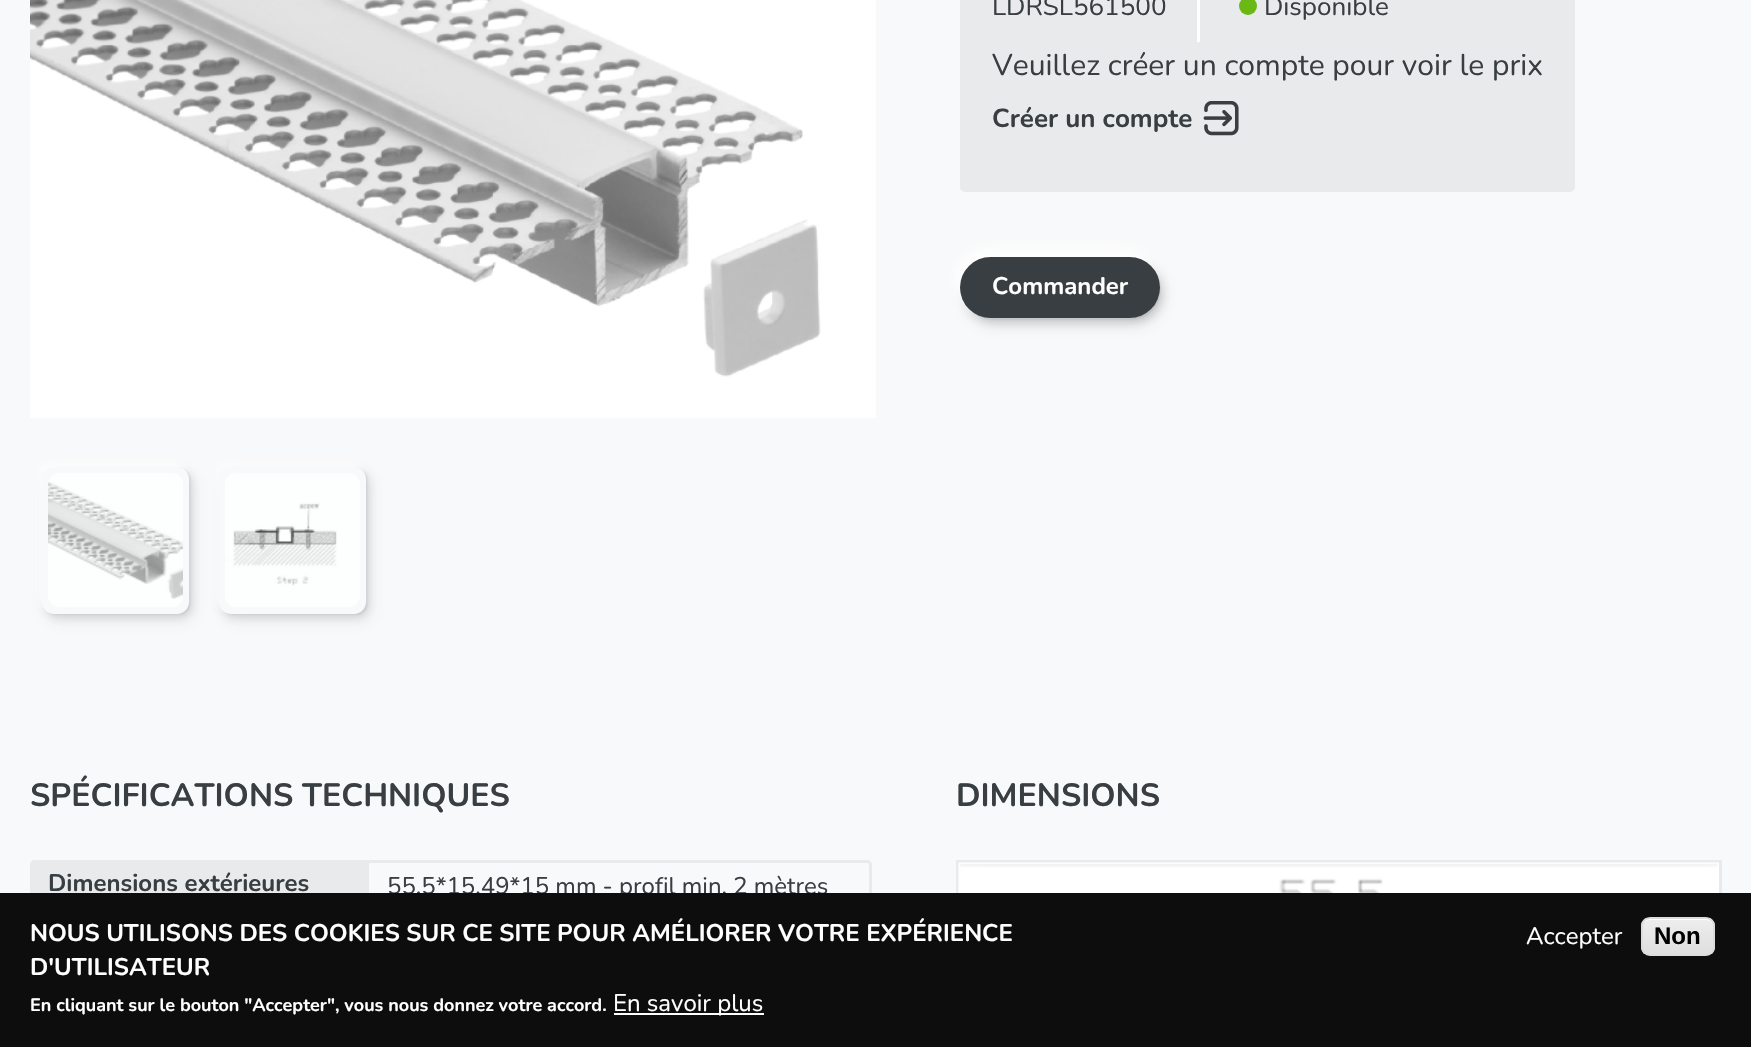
void draw(SkCanvas* canvas) {
	SkPaint fill;
	fill.setAntiAlias(true);
	auto makeFont = [&](const char* family, int weight, float size, bool italic = false) {
		SkFontStyle style(weight, SkFontStyle::kNormal_Width,
			italic ? SkFontStyle::kItalic_Slant : SkFontStyle::kUpright_Slant);
		SkFont result(fontMgr->matchFamilyStyle(family, style), size);
		result.setSubpixel(true);
		return result;
	};
	auto text = [&](const char* s, float x, float y, const SkFont& font) {
		canvas->drawString(s, x, y, font, fill);
	};
	auto box = [&](float l, float t, float r, float b) {
		canvas->drawRect(SkRect::MakeLTRB(l, t, r, b), fill);
	};
	auto roundBox = [&](float l, float t, float r, float b, float radius) {
		canvas->drawRoundRect(SkRect::MakeLTRB(l, t, r, b), radius, radius, fill);
	};
	auto picture = [&](const char* path, float l, float t, float r, float b) {
		auto image = SkImages::DeferredFromEncodedData(SkData::MakeFromFileName(path));
		canvas->drawImageRect(image, SkRect::MakeLTRB(l, t, r, b), SkSamplingOptions());
	};
	canvas->clear(0xFFF8F9FA);
	picture("image0.png", 30, 0, 876, 418);
	canvas->save();
	canvas->clipPath(SkPathBuilder(SkPathFillType::kEvenOdd).moveTo(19, 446).lineTo(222, 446).lineTo(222, 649).lineTo(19, 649).close().moveTo(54, 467).lineTo(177, 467).cubicTo(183.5f, 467, 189, 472.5f, 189, 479).lineTo(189, 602).cubicTo(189, 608.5f, 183.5f, 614, 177, 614).lineTo(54, 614).cubicTo(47.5f, 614, 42, 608.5f, 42, 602).lineTo(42, 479).cubicTo(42, 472.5f, 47.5f, 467, 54, 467).close().detach(), true);
	fill.setColor(0x14484848);
	fill.setMaskFilter(SkMaskFilter::MakeBlur(kNormal_SkBlurStyle, 9));
	canvas->drawRoundRect(SkRect::MakeLTRB(47, 474, 194, 621), 12, 12, fill);
	fill.setMaskFilter(nullptr);
	canvas->restore();
	canvas->save();
	canvas->clipPath(SkPathBuilder(SkPathFillType::kEvenOdd).moveTo(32, 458).lineTo(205, 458).lineTo(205, 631).lineTo(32, 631).close().moveTo(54, 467).lineTo(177, 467).cubicTo(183.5f, 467, 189, 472.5f, 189, 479).lineTo(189, 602).cubicTo(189, 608.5f, 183.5f, 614, 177, 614).lineTo(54, 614).cubicTo(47.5f, 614, 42, 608.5f, 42, 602).lineTo(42, 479).cubicTo(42, 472.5f, 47.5f, 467, 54, 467).close().detach(), true);
	fill.setColor(0x36686D70);
	fill.setMaskFilter(SkMaskFilter::MakeBlur(kNormal_SkBlurStyle, 4));
	canvas->drawRoundRect(SkRect::MakeLTRB(45, 471, 192, 618), 12, 12, fill);
	fill.setMaskFilter(nullptr);
	canvas->restore();
	canvas->save();
	canvas->clipPath(SkPathBuilder(SkPathFillType::kEvenOdd).moveTo(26, 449).lineTo(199, 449).lineTo(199, 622).lineTo(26, 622).close().moveTo(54, 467).lineTo(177, 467).cubicTo(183.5f, 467, 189, 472.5f, 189, 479).lineTo(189, 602).cubicTo(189, 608.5f, 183.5f, 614, 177, 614).lineTo(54, 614).cubicTo(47.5f, 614, 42, 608.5f, 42, 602).lineTo(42, 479).cubicTo(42, 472.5f, 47.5f, 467, 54, 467).close().detach(), true);
	fill.setColor(0xFFFDFEFE);
	fill.setMaskFilter(SkMaskFilter::MakeBlur(kNormal_SkBlurStyle, 4));
	canvas->drawRoundRect(SkRect::MakeLTRB(39, 462, 186, 609), 12, 12, fill);
	fill.setMaskFilter(nullptr);
	canvas->restore();
	canvas->save();
	canvas->clipPath(SkPathBuilder(SkPathFillType::kEvenOdd).moveTo(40, 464).lineTo(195, 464).lineTo(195, 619).lineTo(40, 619).close().moveTo(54, 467).lineTo(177, 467).cubicTo(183.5f, 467, 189, 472.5f, 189, 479).lineTo(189, 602).cubicTo(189, 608.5f, 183.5f, 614, 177, 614).lineTo(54, 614).cubicTo(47.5f, 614, 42, 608.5f, 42, 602).lineTo(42, 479).cubicTo(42, 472.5f, 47.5f, 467, 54, 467).close().detach(), true);
	fill.setColor(0x1F686D70);
	fill.setMaskFilter(SkMaskFilter::MakeBlur(kNormal_SkBlurStyle, 1));
	canvas->drawRoundRect(SkRect::MakeLTRB(44, 468, 191, 615), 12, 12, fill);
	fill.setMaskFilter(nullptr);
	canvas->restore();
	picture("image1.png", 48, 473, 183, 607);
	canvas->save();
	canvas->clipPath(SkPathBuilder(SkPathFillType::kEvenOdd).moveTo(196, 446).lineTo(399, 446).lineTo(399, 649).lineTo(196, 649).close().moveTo(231, 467).lineTo(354, 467).cubicTo(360.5f, 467, 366, 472.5f, 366, 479).lineTo(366, 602).cubicTo(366, 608.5f, 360.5f, 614, 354, 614).lineTo(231, 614).cubicTo(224.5f, 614, 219, 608.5f, 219, 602).lineTo(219, 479).cubicTo(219, 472.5f, 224.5f, 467, 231, 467).close().detach(), true);
	fill.setColor(0x14484848);
	fill.setMaskFilter(SkMaskFilter::MakeBlur(kNormal_SkBlurStyle, 9));
	canvas->drawRoundRect(SkRect::MakeLTRB(224, 474, 371, 621), 12, 12, fill);
	fill.setMaskFilter(nullptr);
	canvas->restore();
	canvas->save();
	canvas->clipPath(SkPathBuilder(SkPathFillType::kEvenOdd).moveTo(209, 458).lineTo(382, 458).lineTo(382, 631).lineTo(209, 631).close().moveTo(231, 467).lineTo(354, 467).cubicTo(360.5f, 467, 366, 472.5f, 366, 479).lineTo(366, 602).cubicTo(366, 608.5f, 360.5f, 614, 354, 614).lineTo(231, 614).cubicTo(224.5f, 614, 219, 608.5f, 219, 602).lineTo(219, 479).cubicTo(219, 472.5f, 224.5f, 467, 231, 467).close().detach(), true);
	fill.setColor(0x36686D70);
	fill.setMaskFilter(SkMaskFilter::MakeBlur(kNormal_SkBlurStyle, 4));
	canvas->drawRoundRect(SkRect::MakeLTRB(222, 471, 369, 618), 12, 12, fill);
	fill.setMaskFilter(nullptr);
	canvas->restore();
	canvas->save();
	canvas->clipPath(SkPathBuilder(SkPathFillType::kEvenOdd).moveTo(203, 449).lineTo(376, 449).lineTo(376, 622).lineTo(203, 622).close().moveTo(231, 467).lineTo(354, 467).cubicTo(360.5f, 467, 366, 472.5f, 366, 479).lineTo(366, 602).cubicTo(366, 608.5f, 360.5f, 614, 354, 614).lineTo(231, 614).cubicTo(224.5f, 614, 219, 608.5f, 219, 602).lineTo(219, 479).cubicTo(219, 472.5f, 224.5f, 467, 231, 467).close().detach(), true);
	fill.setColor(0xFFFDFDFE);
	fill.setMaskFilter(SkMaskFilter::MakeBlur(kNormal_SkBlurStyle, 4));
	canvas->drawRoundRect(SkRect::MakeLTRB(216, 462, 363, 609), 12, 12, fill);
	fill.setMaskFilter(nullptr);
	canvas->restore();
	canvas->save();
	canvas->clipPath(SkPathBuilder(SkPathFillType::kEvenOdd).moveTo(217, 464).lineTo(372, 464).lineTo(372, 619).lineTo(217, 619).close().moveTo(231, 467).lineTo(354, 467).cubicTo(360.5f, 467, 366, 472.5f, 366, 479).lineTo(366, 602).cubicTo(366, 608.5f, 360.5f, 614, 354, 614).lineTo(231, 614).cubicTo(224.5f, 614, 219, 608.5f, 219, 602).lineTo(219, 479).cubicTo(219, 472.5f, 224.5f, 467, 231, 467).close().detach(), true);
	fill.setColor(0x1F686D70);
	fill.setMaskFilter(SkMaskFilter::MakeBlur(kNormal_SkBlurStyle, 1));
	canvas->drawRoundRect(SkRect::MakeLTRB(221, 468, 368, 615), 12, 12, fill);
	fill.setMaskFilter(nullptr);
	canvas->restore();
	picture("image2.png", 225, 473, 360, 607);
	fill.setColor(0xFFE9EAEB);
	roundBox(960, -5, 1575, 192, 5);
	fill.setColor(0xFFFFFFFF);
	box(1197, 0, 1200, 42);
	fill.setColor(0xFF69B814);
	canvas->drawCircle(1248, 6, 9, fill);
	picture("image3.png", 1203, 101, 1239, 136);
	fill.setColor(0x140D0D0D);
	fill.setMaskFilter(SkMaskFilter::MakeBlur(kNormal_SkBlurStyle, 9));
	canvas->drawRoundRect(SkRect::MakeLTRB(965, 264, 1164, 326), 31, 31, fill);
	fill.setMaskFilter(nullptr);
	fill.setColor(0xFFFFFFFF);
	fill.setMaskFilter(SkMaskFilter::MakeBlur(kNormal_SkBlurStyle, 9));
	canvas->drawRoundRect(SkRect::MakeLTRB(956, 249, 1155, 311), 31, 31, fill);
	fill.setMaskFilter(nullptr);
	fill.setColor(0x36383E42);
	fill.setMaskFilter(SkMaskFilter::MakeBlur(kNormal_SkBlurStyle, 4));
	canvas->drawRoundRect(SkRect::MakeLTRB(963, 261, 1163, 323), 31, 31, fill);
	fill.setMaskFilter(nullptr);
	fill.setColor(0xFFFFFFFF);
	fill.setMaskFilter(SkMaskFilter::MakeBlur(kNormal_SkBlurStyle, 4));
	canvas->drawRoundRect(SkRect::MakeLTRB(957, 252, 1157, 314), 31, 31, fill);
	fill.setMaskFilter(nullptr);
	fill.setColor(0x1F383E42);
	fill.setMaskFilter(SkMaskFilter::MakeBlur(kNormal_SkBlurStyle, 1));
	canvas->drawRoundRect(SkRect::MakeLTRB(962, 258, 1161, 320), 31, 31, fill);
	fill.setMaskFilter(nullptr);
	fill.setColor(0xFFFFFFFF);
	fill.setMaskFilter(SkMaskFilter::MakeBlur(kNormal_SkBlurStyle, 1));
	canvas->drawRoundRect(SkRect::MakeLTRB(959, 255, 1158, 317), 31, 31, fill);
	fill.setMaskFilter(nullptr);
	fill.setColor(0xFF383E42);
	roundBox(960, 257, 1160, 318, 30.5f);
	fill.setColor(0xFFE9EAEB);
	canvas->drawPath(SkPathBuilder().moveTo(35, 860).lineTo(366, 860).lineTo(366, 932).lineTo(35, 932).cubicTo(32, 932, 30, 930, 30, 927).lineTo(30, 865).cubicTo(30, 862, 32, 860, 35, 860).close().detach(), fill);
	fill.setStyle(SkPaint::kStroke_Style);
	fill.setStrokeWidth(3);
	canvas->drawPath(SkPathBuilder().moveTo(367.5f, 861.5f).lineTo(867, 861.5f).cubicTo(869, 861.5f, 870.5f, 863, 870.5f, 865).lineTo(870.5f, 927).cubicTo(870.5f, 929, 869, 930.5f, 867, 930.5f).lineTo(367.5f, 930.5f).close().detach(), fill);
	canvas->drawRect(SkRect::MakeLTRB(957.5f, 861.5f, 1720.5f, 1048.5f), fill);
	picture("image4.png", 958, 862, 1719, 893);
	auto font1 = makeFont("Nunito", 400, 26);
	fill.setStyle(SkPaint::kFill_Style);
	fill.setColor(0xFF383E42);
	text("LDRSL561500", 992, 15, font1);
	text("Disponible", 1264, 15, font1);
	auto font2 = makeFont("Nunito", 400, 30);
	text("Veuillez créer un compte pour voir le prix", 992, 75, font2);
	auto font3 = makeFont("Nunito", 700, 26);
	text("Créer un compte", 992, 127, font3);
	auto font4 = makeFont("Nunito", 700, 24);
	fill.setColor(0xFFFFFFFF);
	text("Commander", 992, 294, font4);
	auto font5 = makeFont("Nunito", 700, 32.2f);
	fill.setColor(0xFF383E42);
	text("SPÉCIFICATIONS TECHNIQUES", 30, 806, font5);
	text("Dimensions extérieures", 48, 891, font4);
	auto font6 = makeFont("Nunito", 400, 24);
	text("55.5*15.49*15 mm - profil min. 2 mètres", 387, 894, font6);
	text("DIMENSIONS", 956, 806, font5);
	fill.setColor(0xFF0D0D0D);
	box(0, 893, 1751, 1047);
	fill.setColor(0xFFFFFFFF);
	text("NOUS UTILISONS DES COOKIES SUR CE SITE POUR AMÉLIORER VOTRE EXPÉRIENCE", 30, 941, font4);
	text("D'UTILISATEUR", 30, 975, font4);
	auto font7 = makeFont("Nunito", 700, 18);
	text("En cliquant sur le bouton \"Accepter\", vous nous donnez votre accord.", 30, 1011, font7);
	box(614, 1013, 764, 1015);
	text("En savoir plus", 613, 1011, font6);
	text("Accepter", 1526, 944, font6);
	canvas->save();
	canvas->clipPath(SkPathBuilder().moveTo(1650, 917).lineTo(1706, 917).cubicTo(1711, 917, 1715, 921, 1715, 926).lineTo(1715, 947).cubicTo(1715, 952, 1711, 956, 1706, 956).lineTo(1650, 956).cubicTo(1645, 956, 1641, 952, 1641, 947).lineTo(1641, 926).cubicTo(1641, 921, 1645, 917, 1650, 917).close().detach(), true);
	{
		const SkColor colors[] = {0xFFEDEDED, 0xFFDFDFDF};
		const float stops[] = {0.05f, 1};
		const SkPoint ends[] = {{1678, 918}, {1678, 954}};
		fill.setShader(SkGradientShader::MakeLinear(ends, colors, stops, 2, SkTileMode::kClamp));
		fill.setAlpha(255);
	}
	box(1641, 918, 1715, 954);
	canvas->restore();
	fill.setShader(nullptr);
	fill.setColor(0xFFFFFFFF);
	canvas->drawPath(SkPathBuilder().moveTo(1650, 920).lineTo(1706, 920).cubicTo(1710, 920, 1713, 923, 1713, 927).lineTo(1713, 926).cubicTo(1713, 922, 1709, 918, 1705, 918).lineTo(1651, 918).cubicTo(1648, 918, 1645, 920, 1644, 923).cubicTo(1645, 921, 1648, 920, 1650, 920).close().detach(), fill);
	fill.setStyle(SkPaint::kStroke_Style);
	fill.setStrokeWidth(2);
	fill.setColor(0xFFDCDCDC);
	canvas->drawRoundRect(SkRect::MakeLTRB(1642, 918, 1714, 955), 8, 8, fill);
	auto font8 = makeFont("Liberation Sans", 700, 24);
	fill.setStyle(SkPaint::kFill_Style);
	fill.setColor(0xFF000000);
	text("Non", 1654, 944, font8);
}
